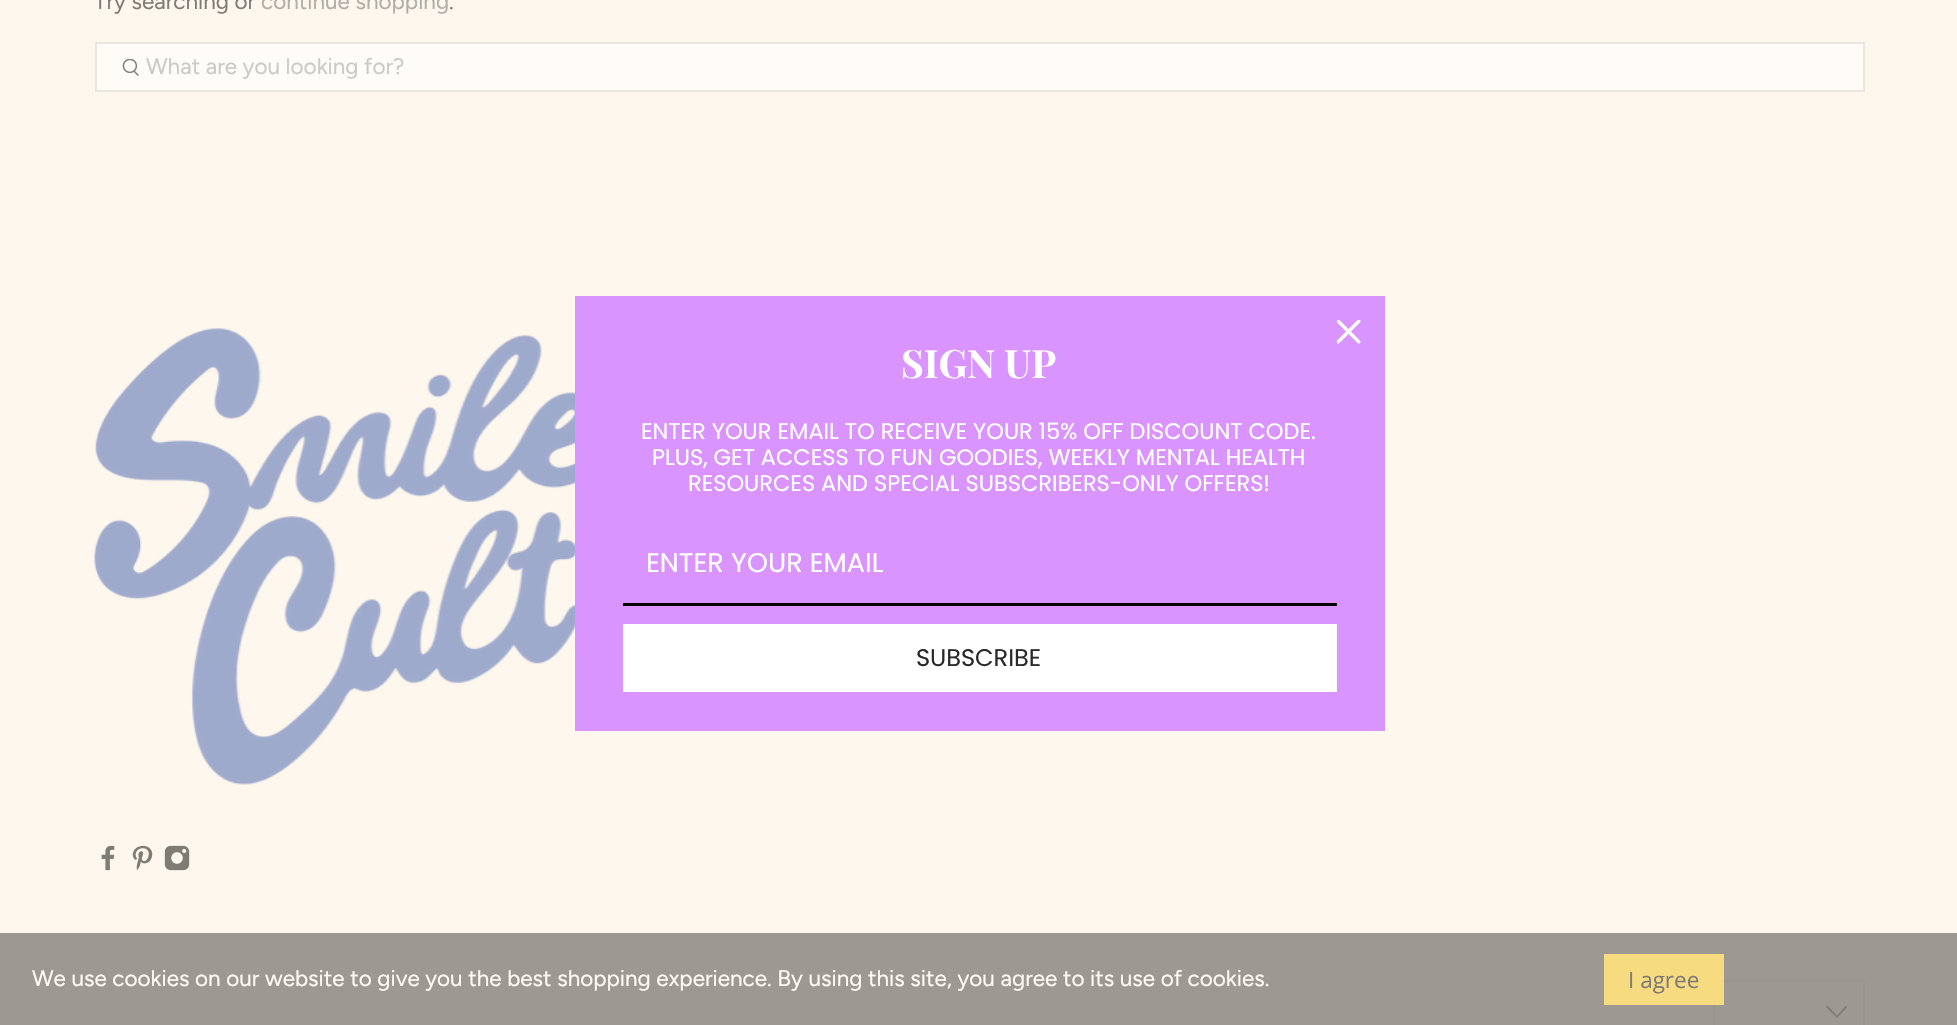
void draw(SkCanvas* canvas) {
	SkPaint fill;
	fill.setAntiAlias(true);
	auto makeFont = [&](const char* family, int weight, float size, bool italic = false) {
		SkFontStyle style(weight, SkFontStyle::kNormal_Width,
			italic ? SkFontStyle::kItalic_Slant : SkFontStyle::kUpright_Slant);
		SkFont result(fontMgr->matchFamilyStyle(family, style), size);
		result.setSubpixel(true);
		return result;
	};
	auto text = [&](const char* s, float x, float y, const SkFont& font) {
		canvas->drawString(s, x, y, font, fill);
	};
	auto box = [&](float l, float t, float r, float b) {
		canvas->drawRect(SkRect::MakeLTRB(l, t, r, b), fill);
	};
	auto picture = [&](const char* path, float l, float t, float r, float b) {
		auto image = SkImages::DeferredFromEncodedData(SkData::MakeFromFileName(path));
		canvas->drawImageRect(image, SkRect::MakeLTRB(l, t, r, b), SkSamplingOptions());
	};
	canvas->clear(0xFFFEF7ED);
	fill.setColor(0xFFFFFBF6);
	canvas->drawRect(SkRect::MakeLTRB(96, 43, 1864, 91), fill);
	fill.setStyle(SkPaint::kStroke_Style);
	fill.setStrokeWidth(2);
	fill.setColor(0xFFE9E5E0);
	canvas->drawRect(SkRect::MakeLTRB(96, 43, 1864, 91), fill);
	picture("image0.png", 122, 59, 139, 76);
	picture("image1.png", 94, 328, 575, 785);
	picture("image2.png", 101, 845, 115, 871);
	picture("image3.png", 132, 845, 153, 871);
	picture("image4.png", 164, 845, 190, 871);
	canvas->drawRoundRect(SkRect::MakeLTRB(1714, 981, 1864, 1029), 2, 2, fill);
	fill.setStyle(SkPaint::kFill_Style);
	fill.setColor(0xFF7F7C77);
	canvas->drawPath(SkPathBuilder().moveTo(1837, 1018).lineTo(1826, 1007).lineTo(1827.5f, 1005.5f).lineTo(1837, 1015.5f).lineTo(1846, 1005.5f).lineTo(1847.5f, 1007).close().detach(), fill);
	fill.setColor(0xFFDA94FF);
	box(575, 296, 1385, 731);
	picture("image5.png", 1337, 320, 1361, 344);
	fill.setColor(0xFF000000);
	box(623, 603, 1337, 606);
	fill.setColor(0xFFFFFFFF);
	box(623, 624, 1337, 692);
	fill.setColor(0xC47F7C77);
	box(0, 933, 1957, 1025);
	fill.setColor(0xFFF6DB80);
	box(1604, 954, 1724, 1005);
	auto font1 = makeFont("Figtree", 400, 22.5f);
	fill.setColor(0xFF7F7C77);
	text("Try searching or", 94, 9, font1);
	fill.setColor(0xFFB1ADA8);
	text("continue shopping", 261, 9, font1);
	fill.setColor(0xFF7F7C77);
	text(".", 449, 9, font1);
	fill.setColor(0xFFCDC9C4);
	text("What are you looking for?", 146, 74, font1);
	auto font2 = makeFont("Playfair Display", 700, 39);
	fill.setColor(0xFFFFFFFF);
	text("SIGN UP", 901, 378, font2);
	auto font3 = makeFont("Poppins", 400, 22.5f);
	text("ENTER YOUR EMAIL TO RECEIVE YOUR 15% OFF DISCOUNT CODE.", 641, 439, font3);
	text("PLUS, GET ACCESS TO FUN GOODIES, WEEKLY MENTAL HEALTH", 652, 465, font3);
	text("RESOURCES AND SPECIAL SUBSCRIBERS-ONLY OFFERS!", 688, 491, font3);
	auto font4 = makeFont("Poppins", 400, 27);
	text("ENTER YOUR EMAIL", 646, 572, font4);
	auto font5 = makeFont("Poppins", 400, 24);
	fill.setColor(0xFF292929);
	text("SUBSCRIBE", 916, 666, font5);
	fill.setColor(0xFFFFFBF6);
	text("We use cookies on our website to give you the best shopping experience. By using this site, you agree to its use of cookies.", 32, 986, font1);
	auto font6 = makeFont("Open Sans", 400, 22.5f);
	fill.setColor(0xFF7F7C77);
	text("I agree", 1628, 988, font6);
}
